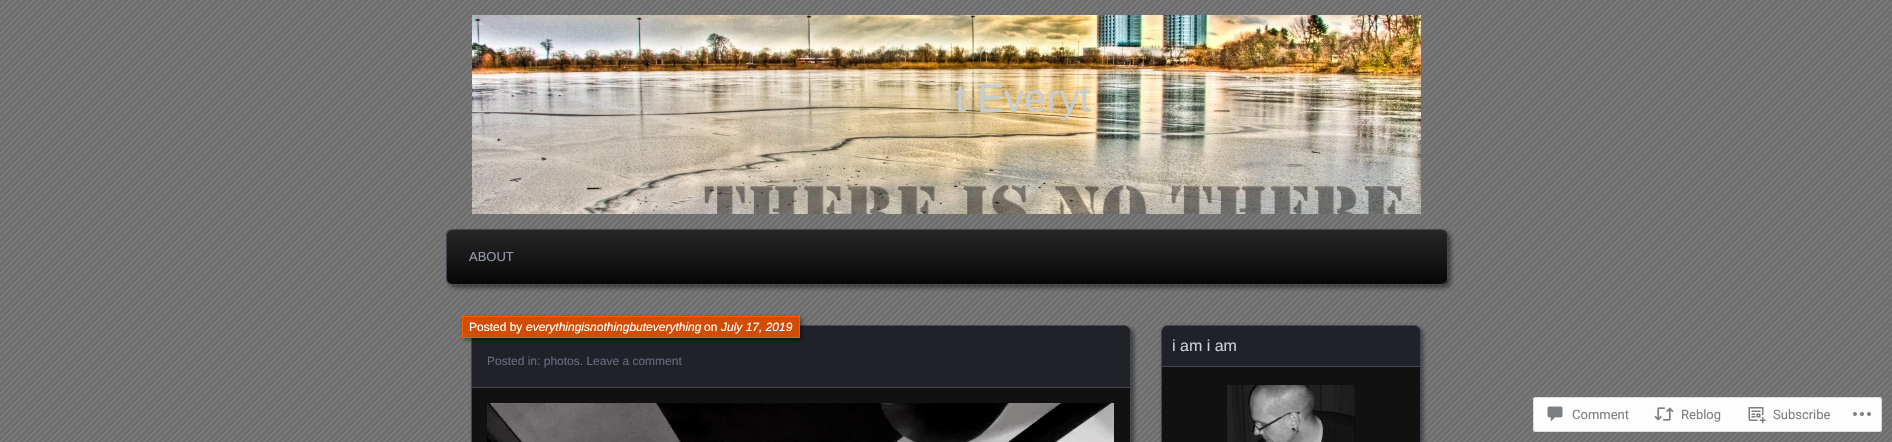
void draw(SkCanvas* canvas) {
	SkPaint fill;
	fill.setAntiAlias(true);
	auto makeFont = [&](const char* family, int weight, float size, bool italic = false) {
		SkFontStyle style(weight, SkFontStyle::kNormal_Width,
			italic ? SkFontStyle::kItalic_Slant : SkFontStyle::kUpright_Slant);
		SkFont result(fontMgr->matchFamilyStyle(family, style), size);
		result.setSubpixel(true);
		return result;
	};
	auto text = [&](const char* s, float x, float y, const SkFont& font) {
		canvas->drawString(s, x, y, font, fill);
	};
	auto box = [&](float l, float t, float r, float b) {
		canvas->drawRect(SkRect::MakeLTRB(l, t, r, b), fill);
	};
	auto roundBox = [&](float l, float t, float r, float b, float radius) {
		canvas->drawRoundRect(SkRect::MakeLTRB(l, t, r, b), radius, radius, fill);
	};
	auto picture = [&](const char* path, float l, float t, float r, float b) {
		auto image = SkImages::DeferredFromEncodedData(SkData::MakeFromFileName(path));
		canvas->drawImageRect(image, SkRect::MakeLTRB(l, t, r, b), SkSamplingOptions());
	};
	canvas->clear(0xFF6B6B6B);
	picture("image0.png", 0, 0, 1892, 442);
	picture("image1.png", 472, 15, 1421, 214);
	fill.setColor(0x73000000);
	fill.setMaskFilter(SkMaskFilter::MakeBlur(kNormal_SkBlurStyle, 2));
	canvas->drawRoundRect(SkRect::MakeLTRB(449, 232, 1451, 288), 7, 7, fill);
	fill.setMaskFilter(nullptr);
	canvas->save();
	canvas->clipPath(SkPathBuilder().moveTo(453, 229).lineTo(1441, 229).cubicTo(1445, 229, 1448, 232, 1448, 236).lineTo(1448, 278).cubicTo(1448, 282, 1445, 285, 1441, 285).lineTo(453, 285).cubicTo(449, 285, 446, 282, 446, 278).lineTo(446, 236).cubicTo(446, 232, 449, 229, 453, 229).close().detach(), true);
	{
		const SkColor colors[] = {0xFF272727, 0xFF070707};
		const float stops[] = {0.01f, 1};
		const SkPoint ends[] = {{947, 230}, {947, 284}};
		fill.setShader(SkGradientShader::MakeLinear(ends, colors, stops, 2, SkTileMode::kClamp));
		fill.setAlpha(255);
	}
	box(446, 230, 1448, 284);
	canvas->restore();
	fill.setStyle(SkPaint::kStroke_Style);
	fill.setStrokeWidth(1);
	fill.setShader(nullptr);
	fill.setColor(0xFF444855);
	canvas->drawRoundRect(SkRect::MakeLTRB(446.5f, 229.5f, 1447.5f, 284.5f), 6.5f, 6.5f, fill);
	fill.setStyle(SkPaint::kFill_Style);
	fill.setColor(0x73000000);
	fill.setMaskFilter(SkMaskFilter::MakeBlur(kNormal_SkBlurStyle, 2));
	canvas->drawRoundRect(SkRect::MakeLTRB(474, 328, 1134, 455), 7, 7, fill);
	fill.setMaskFilter(nullptr);
	fill.setColor(0xFF111111);
	canvas->drawRoundRect(SkRect::MakeLTRB(471.5f, 325.5f, 1130.5f, 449.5f), 6.5f, 6.5f, fill);
	fill.setStyle(SkPaint::kStroke_Style);
	fill.setColor(0xFF444855);
	canvas->drawRoundRect(SkRect::MakeLTRB(471.5f, 325.5f, 1130.5f, 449.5f), 6.5f, 6.5f, fill);
	fill.setStyle(SkPaint::kFill_Style);
	fill.setColor(0xFF202228);
	canvas->drawPath(SkPathBuilder().moveTo(479, 326).lineTo(1123, 326).cubicTo(1127, 326, 1130, 329, 1130, 333).lineTo(1130, 388).lineTo(472, 388).lineTo(472, 333).cubicTo(472, 329, 475, 326, 479, 326).close().detach(), fill);
	fill.setColor(0xFF444855);
	box(472, 387, 1130, 388);
	fill.setColor(0x73000000);
	fill.setMaskFilter(SkMaskFilter::MakeBlur(kNormal_SkBlurStyle, 2));
	canvas->drawRect(SkRect::MakeLTRB(464, 318, 802, 340), fill);
	fill.setMaskFilter(nullptr);
	fill.setColor(0xFFD24D04);
	canvas->drawRect(SkRect::MakeLTRB(462.5f, 316.5f, 799.5f, 337.5f), fill);
	fill.setStyle(SkPaint::kStroke_Style);
	fill.setColor(0xFFFF5A00);
	canvas->drawRect(SkRect::MakeLTRB(462.5f, 316.5f, 799.5f, 337.5f), fill);
	picture("image2.png", 487, 403, 1114, 442);
	fill.setStyle(SkPaint::kFill_Style);
	fill.setColor(0x73000000);
	fill.setMaskFilter(SkMaskFilter::MakeBlur(kNormal_SkBlurStyle, 2));
	canvas->drawRoundRect(SkRect::MakeLTRB(1163, 327, 1423, 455), 7, 7, fill);
	fill.setMaskFilter(nullptr);
	fill.setColor(0xFF111111);
	canvas->drawRoundRect(SkRect::MakeLTRB(1161.5f, 325.5f, 1420.5f, 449.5f), 6.5f, 6.5f, fill);
	fill.setStyle(SkPaint::kStroke_Style);
	fill.setColor(0xFF444855);
	canvas->drawRoundRect(SkRect::MakeLTRB(1161.5f, 325.5f, 1420.5f, 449.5f), 6.5f, 6.5f, fill);
	fill.setStyle(SkPaint::kFill_Style);
	fill.setColor(0xFF202228);
	canvas->drawPath(SkPathBuilder().moveTo(1168, 326).lineTo(1414, 326).cubicTo(1417.5f, 326, 1420, 328.5f, 1420, 332).lineTo(1420, 367).lineTo(1162, 367).lineTo(1162, 332).cubicTo(1162, 328.5f, 1164.5f, 326, 1168, 326).close().detach(), fill);
	fill.setColor(0xFF444855);
	box(1162, 366, 1420, 367);
	picture("image3.png", 1227, 385, 1355, 442);
	fill.setColor(0xFAFFFFFF);
	roundBox(1533, 397, 1882, 432, 3);
	fill.setStyle(SkPaint::kStroke_Style);
	fill.setColor(0xFADCDCDE);
	canvas->drawRoundRect(SkRect::MakeLTRB(1533.5f, 397.5f, 1881.5f, 431.5f), 2.5f, 2.5f, fill);
	picture("image4.png", 1547, 406, 1563, 422);
	picture("image5.png", 1654, 407, 1674, 421);
	picture("image6.png", 1748, 407, 1766, 424);
	picture("image7.png", 1853, 412, 1871, 416);
	auto font1 = makeFont("Liberation Sans", 400, 40);
	fill.setStyle(SkPaint::kFill_Style);
	fill.setColor(0xFFC6CDD1);
	text("t Everyt", 955, 112, font1);
	auto font2 = makeFont("Liberation Sans", 400, 13);
	fill.setColor(0xFF989EAE);
	text("ABOUT", 469, 261, font2);
	auto font3 = makeFont("Liberation Sans", 400, 12);
	fill.setColor(0xFFFFFFFF);
	text("Posted by", 469, 331, font3);
	auto font4 = makeFont("Liberation Sans", 400, 12, true);
	text("everythingisnothingbuteverything", 526, 331, font4);
	text("on", 704, 331, font3);
	text("July 17, 2019", 721, 331, font4);
	fill.setColor(0xFF666C7F);
	text("Posted in: photos. Leave a comment", 487, 365, font3);
	auto font5 = makeFont("Liberation Sans", 400, 16);
	fill.setColor(0xFFCCCFD7);
	text("i am i am", 1172, 351, font5);
	auto font6 = makeFont("Roboto", 400, 13);
	fill.setColor(0xFF7B7F84);
	text("Comment", 1572, 419, font6);
	text("Reblog", 1681, 419, font6);
	text("Subscribe", 1773, 419, font6);
}
